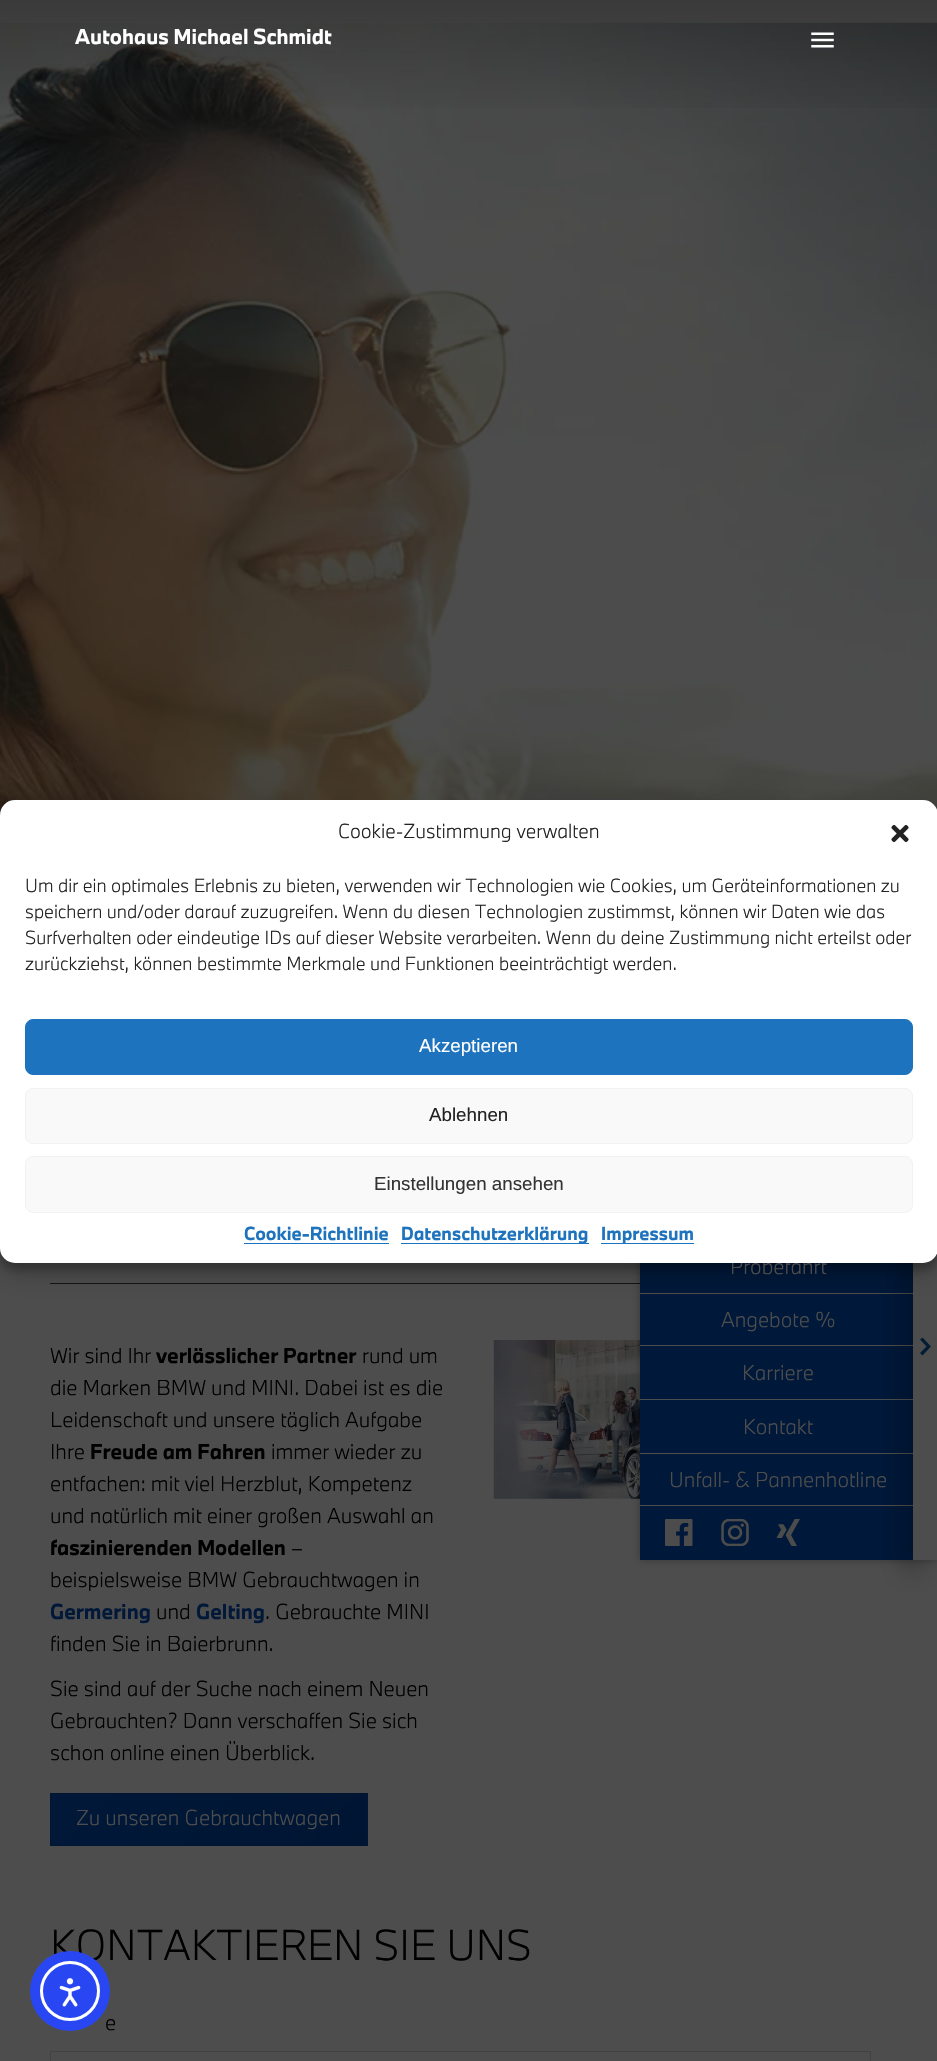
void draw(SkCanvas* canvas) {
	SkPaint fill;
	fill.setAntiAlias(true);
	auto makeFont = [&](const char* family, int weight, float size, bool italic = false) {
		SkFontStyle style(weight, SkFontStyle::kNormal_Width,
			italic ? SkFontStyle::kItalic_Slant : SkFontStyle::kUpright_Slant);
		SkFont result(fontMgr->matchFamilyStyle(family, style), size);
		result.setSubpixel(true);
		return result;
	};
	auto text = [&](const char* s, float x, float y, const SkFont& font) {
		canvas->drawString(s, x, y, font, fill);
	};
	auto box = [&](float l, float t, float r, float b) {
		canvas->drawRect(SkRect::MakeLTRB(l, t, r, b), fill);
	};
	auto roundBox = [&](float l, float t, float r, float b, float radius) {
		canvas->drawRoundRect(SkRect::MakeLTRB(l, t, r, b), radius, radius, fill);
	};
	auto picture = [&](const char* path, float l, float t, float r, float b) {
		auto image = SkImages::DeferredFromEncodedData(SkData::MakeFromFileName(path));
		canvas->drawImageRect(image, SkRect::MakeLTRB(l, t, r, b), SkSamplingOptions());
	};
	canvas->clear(0xFF4D4D4D);
	picture("image2.png", 0, 22, 937, 815);
	{
		const SkColor colors[] = {0x40000000, 0x00000000};
		const float stops[] = {0, 1};
		const SkPoint ends[] = {{469, 0}, {469, 125}};
		fill.setShader(SkGradientShader::MakeLinear(ends, colors, stops, 2, SkTileMode::kClamp));
		fill.setAlpha(255);
	}
	box(0, 0, 937, 108);
	picture("image0.png", 811, 32, 834, 48);
	fill.setShader(nullptr);
	fill.setColor(0xFF141414);
	box(50, 1283, 640, 1284);
	picture("image3.png", 493, 1340, 640, 1499);
	fill.setColor(0x4D000000);
	fill.setMaskFilter(SkMaskFilter::MakeBlur(kNormal_SkBlurStyle, 4));
	canvas->drawRect(SkRect::MakeLTRB(640, 1134, 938, 1560), fill);
	fill.setMaskFilter(nullptr);
	fill.setColor(0xFF001839);
	box(640, 1263, 913, 1293);
	fill.setColor(0xFF4D4D4D);
	box(640, 1293, 913, 1506);
	fill.setColor(0xFF001839);
	box(640, 1294, 913, 1345);
	box(640, 1346, 913, 1399);
	box(640, 1400, 913, 1453);
	box(640, 1454, 913, 1505);
	box(640, 1506, 913, 1560);
	fill.setColor(0x33000000);
	fill.setMaskFilter(SkMaskFilter::MakeBlur(kNormal_SkBlurStyle, 11));
	canvas->drawRect(SkRect::MakeLTRB(900, 1146, 925, 1573), fill);
	fill.setMaskFilter(nullptr);
	fill.setColor(0xFF4D4D4D);
	box(913, 1253, 937, 1560);
	fill.setColor(0x3B000000);
	fill.setMaskFilter(SkMaskFilter::MakeBlur(kNormal_SkBlurStyle, 4));
	canvas->drawRoundRect(SkRect::MakeLTRB(0, 808, 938, 1270), 15, 15, fill);
	fill.setMaskFilter(nullptr);
	fill.setColor(0x30000000);
	fill.setMaskFilter(SkMaskFilter::MakeBlur(kNormal_SkBlurStyle, 12.5f));
	canvas->drawRoundRect(SkRect::MakeLTRB(0, 813, 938, 1275), 15, 15, fill);
	fill.setMaskFilter(nullptr);
	{
		const SkColor colors[] = {0xFF011839, 0xFF001532};
		const float stops[] = {0, 1};
		const SkPoint ends[] = {{117, 1728}, {300, 1911}};
		fill.setShader(SkGradientShader::MakeLinear(ends, colors, stops, 2, SkTileMode::kClamp));
		fill.setAlpha(255);
	}
	box(51, 1794, 366, 1845);
	{
		const SkColor colors[] = {0xFF011839, 0xFF001532};
		const float stops[] = {0, 1};
		const SkPoint ends[] = {{432, 1728}, {615, 1911}};
		fill.setShader(SkGradientShader::MakeLinear(ends, colors, stops, 2, SkTileMode::kClamp));
		fill.setAlpha(255);
	}
	box(366, 1794, 367, 1845);
	fill.setStyle(SkPaint::kStroke_Style);
	fill.setStrokeWidth(1);
	fill.setShader(nullptr);
	fill.setColor(0xFF011531);
	canvas->drawRect(SkRect::MakeLTRB(50.5f, 1793.5f, 367.5f, 1845.5f), fill);
	fill.setColor(0xFF424242);
	canvas->drawRect(SkRect::MakeLTRB(50.5f, 2051.5f, 870.5f, 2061.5f), fill);
	fill.setStyle(SkPaint::kFill_Style);
	fill.setColor(0xFF001D33);
	canvas->drawPath(SkPathBuilder().moveTo(931, 1346.5f).lineTo(922.5f, 1355.5f).lineTo(920, 1353).lineTo(926.5f, 1346.5f).lineTo(920, 1339.5f).lineTo(922.5f, 1337.5f).close().detach(), fill);
	picture("image4.png", 665, 1519, 693, 1546);
	picture("image5.png", 721, 1519, 749, 1546);
	picture("image6.png", 776, 1519, 800, 1546);
	auto font1 = makeFont("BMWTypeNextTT", 700, 20);
	fill.setColor(0xFFFFFFFF);
	text("Autohaus Michael Schmidt", 75, 44, font1);
	auto font2 = makeFont("BMWTypeNextTT", 300, 20);
	fill.setColor(0xFF000000);
	text("Wir sind Ihr", 50, 1363, font2);
	text("verlässlicher Partner", 156, 1363, font1);
	text("rund um", 362, 1363, font2);
	text("die Marken BMW und MINI. Dabei ist es die", 50, 1395, font2);
	text("Leidenschaft und unsere täglich Aufgabe", 50, 1427, font2);
	text("Ihre", 50, 1459, font2);
	text("Freude am Fahren", 90, 1459, font1);
	text("immer wieder zu", 271, 1459, font2);
	text("entfachen: mit viel Herzblut, Kompetenz", 50, 1491, font2);
	text("und natürlich mit einer großen Auswahl an", 50, 1523, font2);
	text("faszinierenden Modellen", 50, 1555, font1);
	text("–", 291, 1555, font2);
	text("beispielsweise BMW Gebrauchtwagen in", 50, 1587, font2);
	fill.setColor(0xFF011839);
	text("Germering", 50, 1619, font1);
	fill.setColor(0xFF000000);
	text("und", 156, 1619, font2);
	fill.setColor(0xFF011839);
	text("Gelting", 196, 1619, font1);
	fill.setColor(0xFF000000);
	text(". Gebrauchte MINI", 265, 1619, font2);
	text("finden Sie in Baierbrunn.", 50, 1651, font2);
	text("Sie sind auf der Suche nach einem Neuen", 50, 1696, font2);
	text("Gebrauchten? Dann verschaffen Sie sich", 50, 1728, font2);
	text("schon online einen Überblick.", 50, 1760, font2);
	fill.setColor(0xFF4D4D4D);
	text("Zu unseren Gebrauchtwagen", 76, 1825, font2);
	auto font3 = makeFont("BMWTypeNextTT", 300, 40);
	fill.setColor(0xFF000000);
	text("KONTAKTIEREN SIE UNS", 50, 1960, font3);
	text("e", 105, 2030, font2);
	fill.setColor(0xFF4D4D4D);
	text("Probefahrt", 730, 1274, font2);
	fill.setColor(0xFFFFFFFF);
	roundBox(0, 800, 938, 1263, 15);
	auto font4 = makeFont("BMWTypeNextTT", 300, 17.5f);
	fill.setColor(0xFF222222);
	text("zurückziehst, können bestimmte Merkmale und Funktionen beeinträchtigt werden.", 25, 970, font4);
	text("Surfverhalten oder eindeutige IDs auf dieser Website verarbeiten. Wenn du deine Zustimmung nicht erteilst oder", 25, 944, font4);
	text("speichern und/oder darauf zuzugreifen. Wenn du diesen Technologien zustimmst, können wir Daten wie das", 25, 918, font4);
	text("Um dir ein optimales Erlebnis zu bieten, verwenden wir Technologien wie Cookies, um Geräteinformationen zu", 25, 892, font4);
	picture("image1.png", 891, 824, 909, 843);
	fill.setColor(0xFF1E73BE);
	box(601, 1243, 694, 1244);
	auto font5 = makeFont("BMWTypeNextTT", 700, 17.5f);
	text("Impressum", 601, 1240, font5);
	box(401, 1243, 589, 1244);
	text("Datenschutzerklärung", 401, 1240, font5);
	text("Cookie-Richtlinie", 244, 1240, font5);
	box(244, 1243, 389, 1244);
	fill.setColor(0xFFF9F9F9);
	canvas->drawRoundRect(SkRect::MakeLTRB(25.5f, 1156.5f, 912.5f, 1212.5f), 7.5f, 7.5f, fill);
	fill.setStyle(SkPaint::kStroke_Style);
	fill.setColor(0xFFF2F2F2);
	canvas->drawRoundRect(SkRect::MakeLTRB(25.5f, 1156.5f, 912.5f, 1212.5f), 7.5f, 7.5f, fill);
	auto font6 = makeFont("Liberation Sans", 400, 18.75f);
	fill.setStyle(SkPaint::kFill_Style);
	fill.setColor(0xFF333333);
	text("Einstellungen ansehen", 374, 1190, font6);
	fill.setColor(0xFFF9F9F9);
	canvas->drawRoundRect(SkRect::MakeLTRB(25.5f, 1088.5f, 912.5f, 1143.5f), 7.5f, 7.5f, fill);
	fill.setStyle(SkPaint::kStroke_Style);
	fill.setColor(0xFFF2F2F2);
	canvas->drawRoundRect(SkRect::MakeLTRB(25.5f, 1088.5f, 912.5f, 1143.5f), 7.5f, 7.5f, fill);
	fill.setStyle(SkPaint::kFill_Style);
	fill.setColor(0xFF222222);
	text("Ablehnen", 429, 1121, font6);
	fill.setColor(0xFF1E73BE);
	canvas->drawRoundRect(SkRect::MakeLTRB(25.5f, 1019.5f, 912.5f, 1074.5f), 7.5f, 7.5f, fill);
	fill.setStyle(SkPaint::kStroke_Style);
	canvas->drawRoundRect(SkRect::MakeLTRB(25.5f, 1019.5f, 912.5f, 1074.5f), 7.5f, 7.5f, fill);
	fill.setStyle(SkPaint::kFill_Style);
	fill.setColor(0xFFFFFFFF);
	text("Akzeptieren", 419, 1052, font6);
	auto font7 = makeFont("BMWTypeNextTT", 300, 18.75f);
	fill.setColor(0xFF222222);
	text("Cookie-Zustimmung verwalten", 338, 838, font7);
	fill.setColor(0xFF4D4D4D);
	text("Angebote %", 721, 1327, font2);
	text("Karriere", 742, 1380, font2);
	text("Kontakt", 743, 1434, font2);
	text("Unfall- & Pannenhotline", 669, 1487, font2);
	fill.setColor(0xFF2847F3);
	canvas->drawCircle(70, 1991, 40, fill);
	fill.setStyle(SkPaint::kStroke_Style);
	fill.setStrokeWidth(3);
	fill.setColor(0xFFFFFFFF);
	canvas->drawCircle(70, 1991, 28.5f, fill);
	picture("image7.png", 59, 1978, 81, 2007);
}
